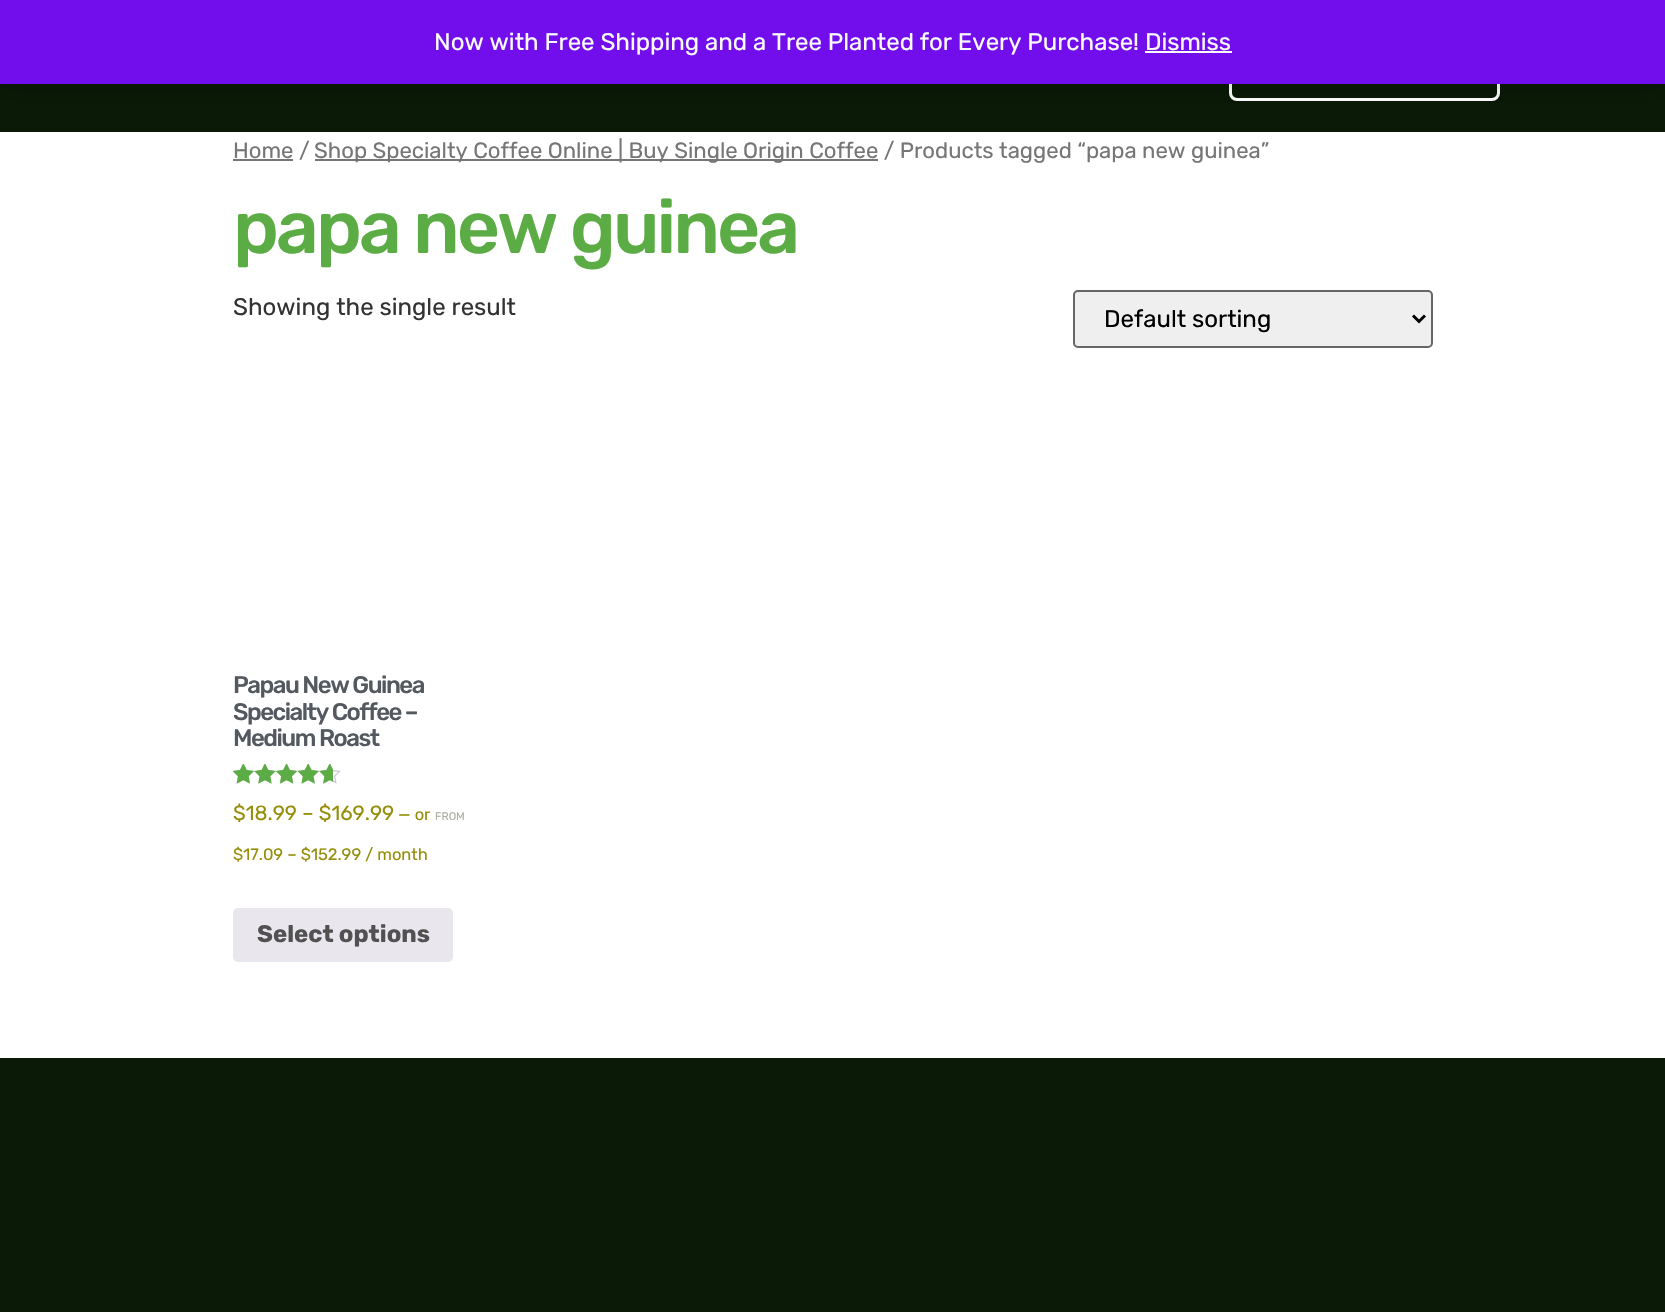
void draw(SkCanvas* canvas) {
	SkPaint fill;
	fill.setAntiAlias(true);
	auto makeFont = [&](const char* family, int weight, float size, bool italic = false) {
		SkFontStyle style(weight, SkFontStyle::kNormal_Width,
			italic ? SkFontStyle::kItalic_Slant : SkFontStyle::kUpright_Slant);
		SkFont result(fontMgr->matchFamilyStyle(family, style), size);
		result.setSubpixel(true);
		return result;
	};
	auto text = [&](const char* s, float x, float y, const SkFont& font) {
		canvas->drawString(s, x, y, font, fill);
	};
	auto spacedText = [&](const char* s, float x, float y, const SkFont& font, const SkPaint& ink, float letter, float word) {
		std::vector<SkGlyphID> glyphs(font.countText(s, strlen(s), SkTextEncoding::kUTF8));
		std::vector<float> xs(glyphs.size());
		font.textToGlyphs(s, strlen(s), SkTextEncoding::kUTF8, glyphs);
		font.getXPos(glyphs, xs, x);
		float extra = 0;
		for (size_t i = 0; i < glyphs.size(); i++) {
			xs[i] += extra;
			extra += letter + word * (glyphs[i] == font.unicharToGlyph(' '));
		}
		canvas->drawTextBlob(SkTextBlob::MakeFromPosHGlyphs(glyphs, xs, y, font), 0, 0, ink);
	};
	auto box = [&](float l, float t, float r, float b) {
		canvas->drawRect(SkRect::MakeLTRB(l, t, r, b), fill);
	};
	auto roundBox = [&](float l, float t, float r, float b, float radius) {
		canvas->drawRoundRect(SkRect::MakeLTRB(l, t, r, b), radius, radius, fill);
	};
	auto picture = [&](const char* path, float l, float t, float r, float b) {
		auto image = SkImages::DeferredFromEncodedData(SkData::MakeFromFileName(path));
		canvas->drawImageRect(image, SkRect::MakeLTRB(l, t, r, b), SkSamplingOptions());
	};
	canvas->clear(0xFFFFFFFF);
	fill.setColor(0xFF0A1A06);
	box(0, 84, 1665, 132);
	fill.setStyle(SkPaint::kStroke_Style);
	fill.setStrokeWidth(3);
	fill.setColor(0xFFFFFFFF);
	canvas->drawRoundRect(SkRect::MakeLTRB(1230.5f, 33.5f, 1498.5f, 99.5f), 6.5f, 6.5f, fill);
	fill.setStyle(SkPaint::kFill_Style);
	fill.setColor(0x33000000);
	fill.setMaskFilter(SkMaskFilter::MakeBlur(kNormal_SkBlurStyle, 12));
	canvas->drawRect(SkRect::MakeLTRB(0, 2, 1665, 86), fill);
	fill.setMaskFilter(nullptr);
	fill.setColor(0xFF720EEC);
	box(0, 0, 1665, 84);
	fill.setColor(0xFFFCFBFE);
	box(1145, 51, 1232, 53);
	fill.setColor(0xFF767676);
	box(233, 159, 293, 161);
	box(315, 159, 878, 161);
	fill.setColor(0xFFEFEFEF);
	canvas->drawRoundRect(SkRect::MakeLTRB(1074, 291, 1432, 347), 4, 4, fill);
	fill.setStyle(SkPaint::kStroke_Style);
	fill.setStrokeWidth(2);
	fill.setColor(0xFF666666);
	canvas->drawRoundRect(SkRect::MakeLTRB(1074, 291, 1432, 347), 4, 4, fill);
	fill.setStrokeWidth(3);
	fill.setColor(0xFF000000);
	canvas->drawPath(SkPathBuilder().moveTo(1413, 315.5f).lineTo(1419, 321.5f).lineTo(1425, 315.5f).detach(), fill);
	picture("image0.png", 233, 764, 341, 784);
	picture("image1.png", 233, 764, 333, 784);
	fill.setStyle(SkPaint::kFill_Style);
	fill.setColor(0xFFE9E6ED);
	roundBox(233, 908, 453, 962, 5);
	fill.setColor(0xFF0A1A06);
	box(0, 1058, 1665, 1312);
	auto font1 = makeFont("Rubik", 400, 24);
	fill.setColor(0xFFFCFBFE);
	text("Now with Free Shipping and a Tree Planted for Every Purchase! Dismiss", 434, 50, font1);
	auto font2 = makeFont("Rubik", 400, 22.1f);
	fill.setColor(0xFF767676);
	text("Home /", 233, 158, font2);
	text("Shop Specialty Coffee Online | Buy Single Origin Coffee / Products tagged “papa new guinea”", 314, 158, font2);
	auto font3 = makeFont("Rubik", 500, 75);
	fill.setColor(0xFF5BAC44);
	spacedText("papa new guinea", 233, 253, font3, fill, -3, 0);
	fill.setColor(0xFF333333);
	text("Showing the single result", 233, 315, font1);
	fill.setColor(0xFF000000);
	text("Default sorting", 1104, 327, font1);
	auto font4 = makeFont("Rubik", 500, 24);
	fill.setColor(0xFF54595F);
	spacedText("Papau New Guinea", 233, 693, font4, fill, -1.5f, 0);
	spacedText("Specialty Coffee –", 233, 720, font4, fill, -1.5f, 0);
	spacedText("Medium Roast", 233, 746, font4, fill, -1.5f, 0);
	auto font5 = makeFont("Rubik", 400, 20.5f);
	fill.setColor(0xFF958E09);
	text("$18.99 – $169.99", 233, 820, font5);
	auto font6 = makeFont("Rubik", 400, 16.5f);
	text("— or", 398, 820, font6);
	auto font7 = makeFont("Rubik", 400, 11);
	fill.setColor(0xFFADACA2);
	text("FROM", 435, 820, font7);
	fill.setColor(0xFF958E09);
	text("$17.09 – $152.99 / month", 233, 860, font6);
	auto font8 = makeFont("Rubik", 700, 24);
	fill.setColor(0xFF515151);
	text("Select options", 257, 942, font8);
}
